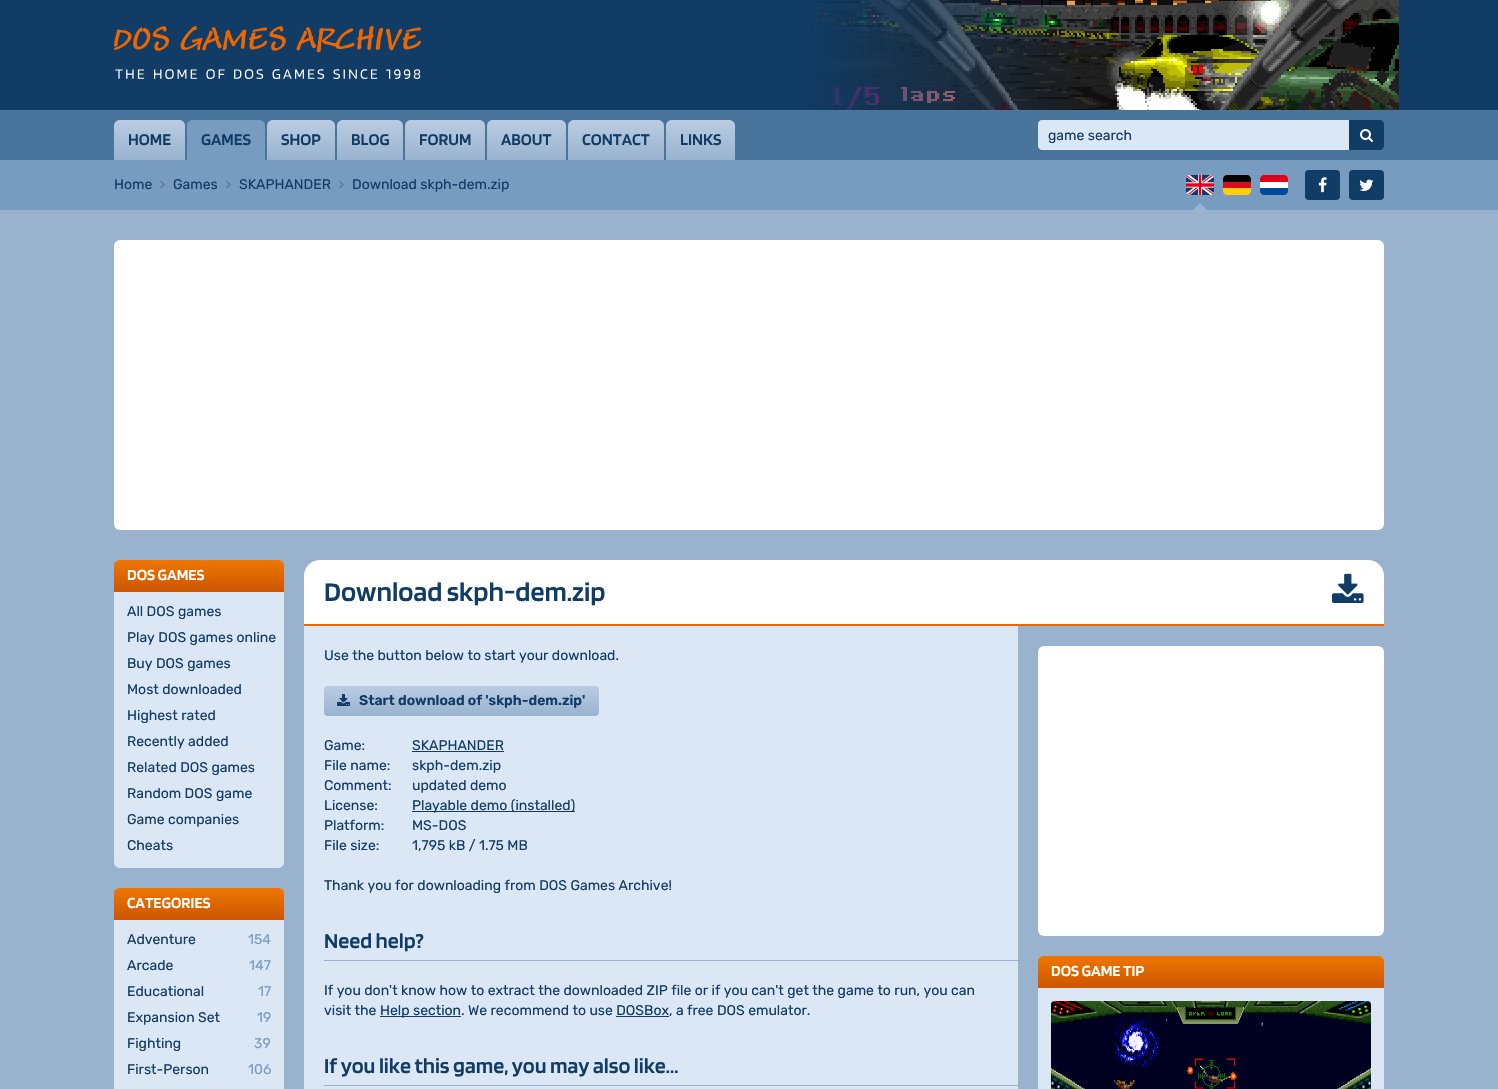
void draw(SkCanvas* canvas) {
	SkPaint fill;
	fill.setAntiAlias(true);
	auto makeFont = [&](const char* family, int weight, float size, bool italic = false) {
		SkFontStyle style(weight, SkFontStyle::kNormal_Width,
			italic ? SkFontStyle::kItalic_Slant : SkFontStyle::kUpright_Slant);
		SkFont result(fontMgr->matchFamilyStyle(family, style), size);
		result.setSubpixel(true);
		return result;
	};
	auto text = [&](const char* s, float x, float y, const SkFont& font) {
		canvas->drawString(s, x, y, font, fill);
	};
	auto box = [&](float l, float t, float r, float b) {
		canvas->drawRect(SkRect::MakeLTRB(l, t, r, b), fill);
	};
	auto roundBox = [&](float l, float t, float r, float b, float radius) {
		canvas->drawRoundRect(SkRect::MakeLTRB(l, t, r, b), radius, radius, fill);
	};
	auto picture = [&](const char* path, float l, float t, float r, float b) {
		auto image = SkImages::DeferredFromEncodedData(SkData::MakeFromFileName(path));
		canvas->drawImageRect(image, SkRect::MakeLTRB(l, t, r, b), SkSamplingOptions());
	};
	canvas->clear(0xFF99B3CF);
	fill.setColor(0xFF113C66);
	box(0, 0, 1498, 110);
	picture("image0.png", 114, 26, 421, 79);
	picture("image1.png", 799, 0, 1399, 110);
	fill.setColor(0xFF49749C);
	box(0, 110, 1498, 160);
	{
		const SkColor colors[] = {0xFFBACCE2, 0xFF99B3CF};
		const float stops[] = {0, 1};
		const SkPoint ends[] = {{150, 120}, {150, 160}};
		fill.setShader(SkGradientShader::MakeLinear(ends, colors, stops, 2, SkTileMode::kClamp));
		fill.setAlpha(255);
	}
	canvas->drawPath(SkPathBuilder().moveTo(120, 120).lineTo(179, 120).cubicTo(182.5f, 120, 185, 122.5f, 185, 126).lineTo(185, 160).lineTo(114, 160).lineTo(114, 126).cubicTo(114, 122.5f, 116.5f, 120, 120, 120).close().detach(), fill);
	fill.setShader(nullptr);
	fill.setColor(0xFF779CC0);
	canvas->drawPath(SkPathBuilder().moveTo(193, 120).lineTo(259, 120).cubicTo(262.5f, 120, 265, 122.5f, 265, 126).lineTo(265, 160).lineTo(187, 160).lineTo(187, 126).cubicTo(187, 122.5f, 189.5f, 120, 193, 120).close().detach(), fill);
	{
		const SkColor colors[] = {0xFFBACCE2, 0xFF99B3CF};
		const float stops[] = {0, 1};
		const SkPoint ends[] = {{301, 120}, {301, 160}};
		fill.setShader(SkGradientShader::MakeLinear(ends, colors, stops, 2, SkTileMode::kClamp));
		fill.setAlpha(255);
	}
	canvas->drawPath(SkPathBuilder().moveTo(273, 120).lineTo(329, 120).cubicTo(332.5f, 120, 335, 122.5f, 335, 126).lineTo(335, 160).lineTo(267, 160).lineTo(267, 126).cubicTo(267, 122.5f, 269.5f, 120, 273, 120).close().detach(), fill);
	{
		const SkColor colors[] = {0xFFBACCE2, 0xFF99B3CF};
		const float stops[] = {0, 1};
		const SkPoint ends[] = {{370, 120}, {370, 160}};
		fill.setShader(SkGradientShader::MakeLinear(ends, colors, stops, 2, SkTileMode::kClamp));
		fill.setAlpha(255);
	}
	canvas->drawPath(SkPathBuilder().moveTo(343, 120).lineTo(397, 120).cubicTo(400.5f, 120, 403, 122.5f, 403, 126).lineTo(403, 160).lineTo(337, 160).lineTo(337, 126).cubicTo(337, 122.5f, 339.5f, 120, 343, 120).close().detach(), fill);
	{
		const SkColor colors[] = {0xFFBACCE2, 0xFF99B3CF};
		const float stops[] = {0, 1};
		const SkPoint ends[] = {{445, 120}, {445, 160}};
		fill.setShader(SkGradientShader::MakeLinear(ends, colors, stops, 2, SkTileMode::kClamp));
		fill.setAlpha(255);
	}
	canvas->drawPath(SkPathBuilder().moveTo(411, 120).lineTo(479, 120).cubicTo(482.5f, 120, 485, 122.5f, 485, 126).lineTo(485, 160).lineTo(405, 160).lineTo(405, 126).cubicTo(405, 122.5f, 407.5f, 120, 411, 120).close().detach(), fill);
	{
		const SkColor colors[] = {0xFFBACCE2, 0xFF99B3CF};
		const float stops[] = {0, 1};
		const SkPoint ends[] = {{527, 120}, {527, 160}};
		fill.setShader(SkGradientShader::MakeLinear(ends, colors, stops, 2, SkTileMode::kClamp));
		fill.setAlpha(255);
	}
	canvas->drawPath(SkPathBuilder().moveTo(493, 120).lineTo(560, 120).cubicTo(563.5f, 120, 566, 122.5f, 566, 126).lineTo(566, 160).lineTo(487, 160).lineTo(487, 126).cubicTo(487, 122.5f, 489.5f, 120, 493, 120).close().detach(), fill);
	{
		const SkColor colors[] = {0xFFBACCE2, 0xFF99B3CF};
		const float stops[] = {0, 1};
		const SkPoint ends[] = {{616, 120}, {616, 160}};
		fill.setShader(SkGradientShader::MakeLinear(ends, colors, stops, 2, SkTileMode::kClamp));
		fill.setAlpha(255);
	}
	canvas->drawPath(SkPathBuilder().moveTo(574, 120).lineTo(658, 120).cubicTo(661.5f, 120, 664, 122.5f, 664, 126).lineTo(664, 160).lineTo(568, 160).lineTo(568, 126).cubicTo(568, 122.5f, 570.5f, 120, 574, 120).close().detach(), fill);
	{
		const SkColor colors[] = {0xFFBACCE2, 0xFF99B3CF};
		const float stops[] = {0, 1};
		const SkPoint ends[] = {{701, 120}, {701, 160}};
		fill.setShader(SkGradientShader::MakeLinear(ends, colors, stops, 2, SkTileMode::kClamp));
		fill.setAlpha(255);
	}
	canvas->drawPath(SkPathBuilder().moveTo(672, 120).lineTo(729, 120).cubicTo(732.5f, 120, 735, 122.5f, 735, 126).lineTo(735, 160).lineTo(666, 160).lineTo(666, 126).cubicTo(666, 122.5f, 668.5f, 120, 672, 120).close().detach(), fill);
	fill.setShader(nullptr);
	fill.setColor(0xFFDCE7F5);
	canvas->drawPath(SkPathBuilder().moveTo(1042, 120).lineTo(1349, 120).lineTo(1349, 150).lineTo(1042, 150).cubicTo(1040, 150, 1038, 148, 1038, 146).lineTo(1038, 124).cubicTo(1038, 122, 1040, 120, 1042, 120).close().detach(), fill);
	fill.setColor(0xFF113C66);
	canvas->drawPath(SkPathBuilder().moveTo(1349, 120).lineTo(1380, 120).cubicTo(1382, 120, 1384, 122, 1384, 124).lineTo(1384, 146).cubicTo(1384, 148, 1382, 150, 1380, 150).lineTo(1349, 150).close().detach(), fill);
	picture("image2.png", 1360, 129, 1373, 142);
	fill.setColor(0xFF779CC0);
	box(0, 160, 1498, 210);
	picture("image3.png", 160, 180, 165, 189);
	picture("image3.png", 226, 180, 231, 189);
	picture("image3.png", 339, 180, 344, 189);
	fill.setColor(0xFF99B3CF);
	canvas->drawPath(SkPathBuilder().moveTo(1193, 210).lineTo(1200, 203).lineTo(1207, 210).close().detach(), fill);
	picture("image4.png", 1186, 175, 1214, 195);
	fill.setColor(0xFF000000);
	canvas->drawPath(SkPathBuilder().moveTo(1227, 175).lineTo(1247, 175).cubicTo(1249, 175, 1251, 177, 1251, 179).lineTo(1251, 182).lineTo(1223, 182).lineTo(1223, 179).cubicTo(1223, 177, 1225, 175, 1227, 175).close().detach(), fill);
	fill.setColor(0xFFDC0C1B);
	box(1223, 182, 1251, 188);
	fill.setColor(0xFFFFCF0D);
	canvas->drawPath(SkPathBuilder().moveTo(1223, 188).lineTo(1251, 188).lineTo(1251, 191).cubicTo(1251, 193, 1249, 195, 1247, 195).lineTo(1227, 195).cubicTo(1225, 195, 1223, 193, 1223, 191).close().detach(), fill);
	fill.setColor(0xFF004A99);
	canvas->drawPath(SkPathBuilder().moveTo(1260, 188).lineTo(1288, 188).lineTo(1288, 191).cubicTo(1288, 193, 1286, 195, 1284, 195).lineTo(1264, 195).cubicTo(1262, 195, 1260, 193, 1260, 191).close().detach(), fill);
	fill.setColor(0xFFFFFFFF);
	box(1260, 182, 1288, 188);
	fill.setColor(0xFFE2001A);
	canvas->drawPath(SkPathBuilder().moveTo(1264, 175).lineTo(1284, 175).cubicTo(1286, 175, 1288, 177, 1288, 179).lineTo(1288, 182).lineTo(1260, 182).lineTo(1260, 179).cubicTo(1260, 177, 1262, 175, 1264, 175).close().detach(), fill);
	fill.setColor(0xFF113C66);
	roundBox(1305, 170, 1340, 200, 4);
	picture("image5.png", 1318, 177, 1327, 193);
	roundBox(1349, 170, 1384, 200, 4);
	picture("image6.png", 1359, 179, 1374, 191);
	fill.setColor(0xFFFFFFFF);
	roundBox(114, 240, 1384, 530, 6);
	{
		const SkColor colors[] = {0xFFEE7700, 0xFFCC5500};
		const float stops[] = {0, 1};
		const SkPoint ends[] = {{199, 560}, {199, 592}};
		fill.setShader(SkGradientShader::MakeLinear(ends, colors, stops, 2, SkTileMode::kClamp));
		fill.setAlpha(255);
	}
	canvas->drawPath(SkPathBuilder().moveTo(120, 560).lineTo(278, 560).cubicTo(281.5f, 560, 284, 562.5f, 284, 566).lineTo(284, 592).lineTo(114, 592).lineTo(114, 566).cubicTo(114, 562.5f, 116.5f, 560, 120, 560).close().detach(), fill);
	fill.setShader(nullptr);
	fill.setColor(0xFFDCE7F5);
	canvas->drawPath(SkPathBuilder().moveTo(114, 592).lineTo(284, 592).lineTo(284, 862).cubicTo(284, 865.5f, 281.5f, 868, 278, 868).lineTo(120, 868).cubicTo(116.5f, 868, 114, 865.5f, 114, 862).close().detach(), fill);
	{
		const SkColor colors[] = {0xFFEE7700, 0xFFCC5500};
		const float stops[] = {0, 1};
		const SkPoint ends[] = {{199, 888}, {199, 920}};
		fill.setShader(SkGradientShader::MakeLinear(ends, colors, stops, 2, SkTileMode::kClamp));
		fill.setAlpha(255);
	}
	canvas->drawPath(SkPathBuilder().moveTo(120, 888).lineTo(278, 888).cubicTo(281.5f, 888, 284, 890.5f, 284, 894).lineTo(284, 920).lineTo(114, 920).lineTo(114, 894).cubicTo(114, 890.5f, 116.5f, 888, 120, 888).close().detach(), fill);
	fill.setShader(nullptr);
	fill.setColor(0xFFDCE7F5);
	box(114, 920, 284, 1089);
	fill.setColor(0xFFFFFFFF);
	canvas->drawPath(SkPathBuilder().moveTo(320, 560).lineTo(1368, 560).cubicTo(1377, 560, 1384, 567, 1384, 576).lineTo(1384, 626).lineTo(304, 626).lineTo(304, 576).cubicTo(304, 567, 311, 560, 320, 560).close().detach(), fill);
	fill.setColor(0xFFEE6600);
	box(304, 624, 1384, 626);
	picture("image7.png", 1332, 573, 1364, 603);
	fill.setColor(0xFFDCE7F5);
	box(304, 626, 1018, 1089);
	{
		const SkColor colors[] = {0xFFBACCE2, 0xFF99B3CF};
		const float stops[] = {0, 1};
		const SkPoint ends[] = {{462, 686}, {462, 716}};
		fill.setShader(SkGradientShader::MakeLinear(ends, colors, stops, 2, SkTileMode::kClamp));
		fill.setAlpha(255);
	}
	roundBox(324, 686, 599, 716, 4);
	picture("image8.png", 337, 694, 350, 706);
	fill.setShader(nullptr);
	fill.setColor(0xFF113C66);
	box(412, 751, 504, 752);
	box(412, 811, 575, 812);
	fill.setColor(0xFF99B3CF);
	box(324, 960, 1018, 961);
	fill.setColor(0xFF113C66);
	box(380, 1016, 461, 1017);
	box(616, 1016, 669, 1017);
	fill.setColor(0xFF99B3CF);
	box(324, 1085, 1018, 1086);
	fill.setColor(0xFFFFFFFF);
	roundBox(1038, 646, 1384, 936, 6);
	{
		const SkColor colors[] = {0xFFEE7700, 0xFFCC5500};
		const float stops[] = {0, 1};
		const SkPoint ends[] = {{1211, 956}, {1211, 988}};
		fill.setShader(SkGradientShader::MakeLinear(ends, colors, stops, 2, SkTileMode::kClamp));
		fill.setAlpha(255);
	}
	canvas->drawPath(SkPathBuilder().moveTo(1044, 956).lineTo(1378, 956).cubicTo(1381.5f, 956, 1384, 958.5f, 1384, 962).lineTo(1384, 988).lineTo(1038, 988).lineTo(1038, 962).cubicTo(1038, 958.5f, 1040.5f, 956, 1044, 956).close().detach(), fill);
	fill.setShader(nullptr);
	fill.setColor(0xFFDCE7F5);
	box(1038, 988, 1384, 1089);
	picture("image9.png", 1051, 1001, 1371, 1089);
	auto font1 = makeFont("Blinker", 600, 17);
	fill.setColor(0xFF113C66);
	text("HOME", 128, 145, font1);
	text("GAMES", 201, 145, font1);
	text("SHOP", 281, 145, font1);
	text("BLOG", 351, 145, font1);
	text("FORUM", 419, 145, font1);
	text("ABOUT", 501, 145, font1);
	text("CONTACT", 582, 145, font1);
	text("LINKS", 680, 145, font1);
	auto font2 = makeFont("Rubik", 400, 14);
	text("game search", 1048, 140, font2);
	text("Home", 114, 189, font2);
	text("Games", 173, 189, font2);
	text("SKAPHANDER", 239, 189, font2);
	text("Download skph-dem.zip", 352, 189, font2);
	auto font3 = makeFont("Blinker", 600, 16);
	fill.setColor(0xFFFFFFFF);
	text("DOS GAMES", 127, 580, font3);
	fill.setColor(0xFF113C66);
	text("All DOS games", 127, 616, font2);
	text("Play DOS games online", 127, 642, font2);
	text("Buy DOS games", 127, 668, font2);
	text("Most downloaded", 127, 694, font2);
	text("Highest rated", 127, 720, font2);
	text("Recently added", 127, 746, font2);
	text("Related DOS games", 127, 772, font2);
	text("Random DOS game", 127, 798, font2);
	text("Game companies", 127, 824, font2);
	text("Cheats", 127, 850, font2);
	fill.setColor(0xFFFFFFFF);
	text("CATEGORIES", 127, 908, font3);
	fill.setColor(0xFF113C66);
	text("Adventure", 127, 944, font2);
	fill.setColor(0xFF779CC0);
	text("154", 248, 944, font2);
	fill.setColor(0xFF113C66);
	text("Arcade", 127, 970, font2);
	fill.setColor(0xFF779CC0);
	text("147", 249, 970, font2);
	fill.setColor(0xFF113C66);
	text("Educational", 127, 996, font2);
	fill.setColor(0xFF779CC0);
	text("17", 258, 996, font2);
	fill.setColor(0xFF113C66);
	text("Expansion Set", 127, 1022, font2);
	fill.setColor(0xFF779CC0);
	text("19", 257, 1022, font2);
	fill.setColor(0xFF113C66);
	text("Fighting", 127, 1048, font2);
	fill.setColor(0xFF779CC0);
	text("39", 254, 1048, font2);
	fill.setColor(0xFF113C66);
	text("First-Person", 127, 1074, font2);
	fill.setColor(0xFF779CC0);
	text("106", 248, 1074, font2);
	auto font4 = makeFont("Blinker", 600, 28);
	fill.setColor(0xFF113C66);
	text("Download skph-dem.zip", 324, 601, font4);
	text("Use the button below to start your download.", 324, 660, font2);
	auto font5 = makeFont("Rubik", 600, 14);
	text("Start download of 'skph-dem.zip'", 359, 705, font5);
	text("Game:", 324, 750, font2);
	text("SKAPHANDER", 412, 750, font2);
	text("File name:", 324, 770, font2);
	text("skph-dem.zip", 412, 770, font2);
	text("Comment:", 324, 790, font2);
	text("updated demo", 412, 790, font2);
	text("License:", 324, 810, font2);
	text("Playable demo (installed)", 412, 810, font2);
	text("Platform:", 324, 830, font2);
	text("MS-DOS", 412, 830, font2);
	text("File size:", 324, 850, font2);
	text("1,795 kB / 1.75 MB", 412, 850, font2);
	text("Thank you for downloading from DOS Games Archive!", 324, 890, font2);
	auto font6 = makeFont("Blinker", 600, 22);
	text("Need help?", 324, 948, font6);
	text("If you don't know how to extract the downloaded ZIP file or if you can't get the game to run, you can", 324, 995, font2);
	text("visit the", 324, 1015, font2);
	text("Help section. We recommend to use DOSBox, a free DOS emulator.", 380, 1015, font2);
	text("If you like this game, you may also like...", 324, 1073, font6);
	fill.setColor(0xFFFFFFFF);
	text("DOS GAME TIP", 1051, 976, font3);
}
